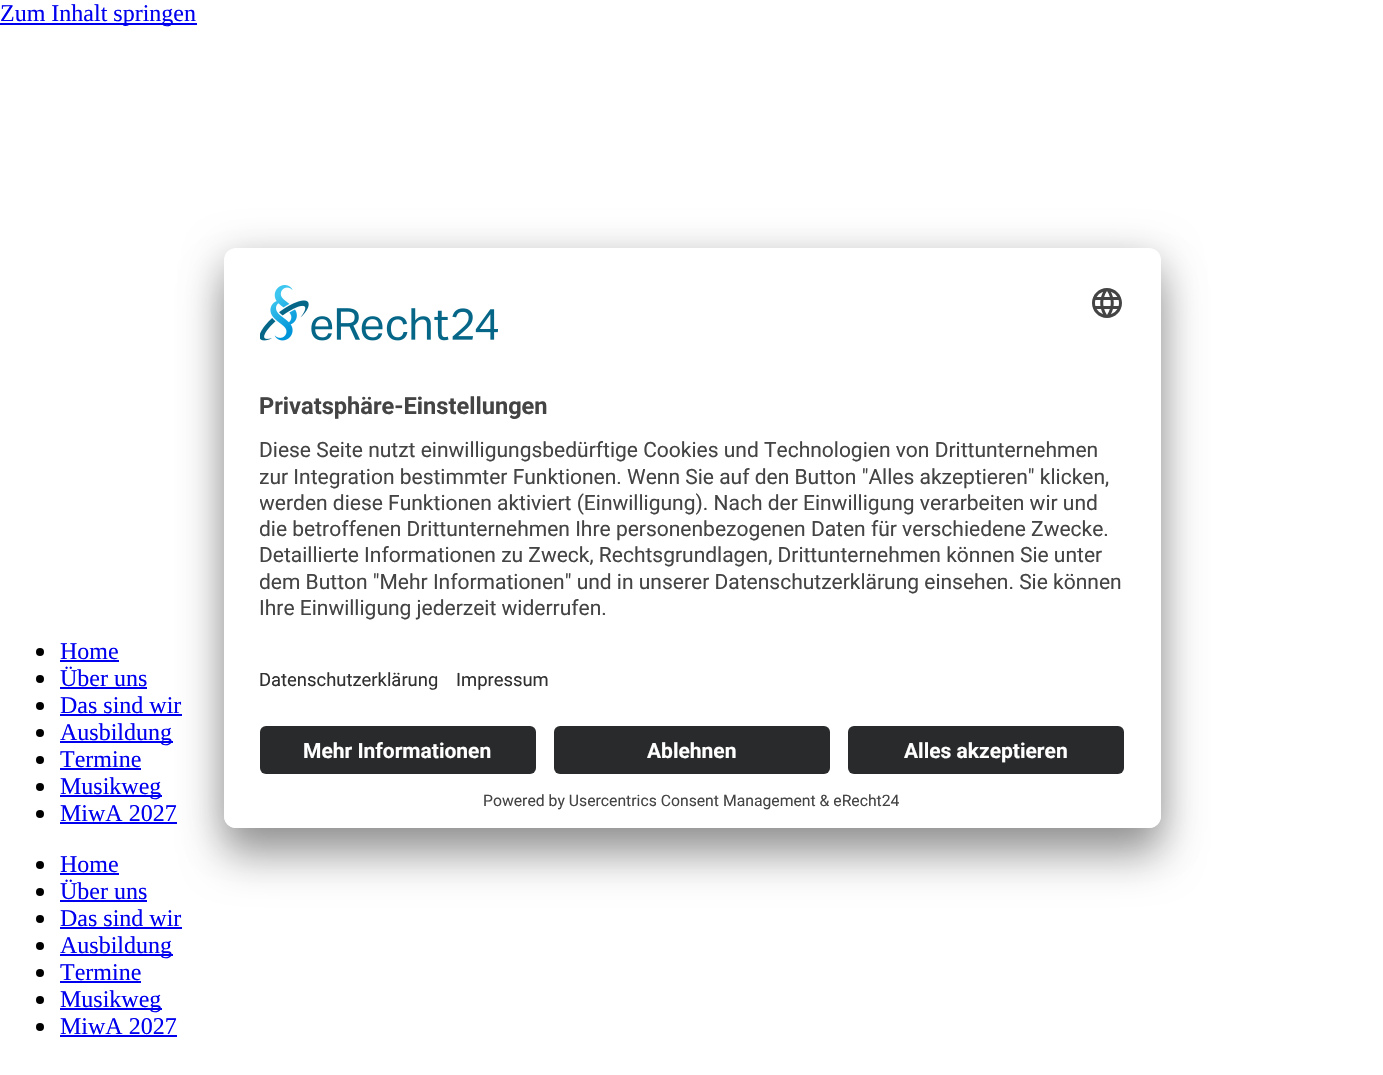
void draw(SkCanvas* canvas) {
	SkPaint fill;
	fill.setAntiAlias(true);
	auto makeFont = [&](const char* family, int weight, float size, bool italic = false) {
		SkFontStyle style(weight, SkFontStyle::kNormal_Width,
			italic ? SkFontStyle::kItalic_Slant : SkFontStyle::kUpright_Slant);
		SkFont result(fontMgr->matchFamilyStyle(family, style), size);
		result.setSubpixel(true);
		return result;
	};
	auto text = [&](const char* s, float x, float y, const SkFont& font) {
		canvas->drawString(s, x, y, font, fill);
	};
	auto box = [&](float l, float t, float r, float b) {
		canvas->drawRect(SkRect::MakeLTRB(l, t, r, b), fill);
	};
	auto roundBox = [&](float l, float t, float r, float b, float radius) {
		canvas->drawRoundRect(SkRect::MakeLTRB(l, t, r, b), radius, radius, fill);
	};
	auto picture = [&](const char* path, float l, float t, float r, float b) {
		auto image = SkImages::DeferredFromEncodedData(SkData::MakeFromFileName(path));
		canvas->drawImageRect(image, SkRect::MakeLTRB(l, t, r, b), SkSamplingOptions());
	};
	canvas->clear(0xFFFFFFFF);
	fill.setColor(0xFF0000EE);
	box(0, 23, 197, 25);
	fill.setColor(0xFF000000);
	canvas->drawCircle(40, 652, 4, fill);
	fill.setColor(0xFF0000EE);
	box(60, 660, 119, 662);
	fill.setColor(0xFF000000);
	canvas->drawCircle(40, 679, 4, fill);
	fill.setColor(0xFF0000EE);
	box(60, 687, 147, 689);
	fill.setColor(0xFF000000);
	canvas->drawCircle(40, 706, 4, fill);
	fill.setColor(0xFF0000EE);
	box(60, 714, 182, 716);
	fill.setColor(0xFF000000);
	canvas->drawCircle(40, 733, 4, fill);
	fill.setColor(0xFF0000EE);
	box(60, 741, 173, 743);
	fill.setColor(0xFF000000);
	canvas->drawCircle(40, 760, 4, fill);
	fill.setColor(0xFF0000EE);
	box(60, 768, 141, 770);
	fill.setColor(0xFF000000);
	canvas->drawCircle(40, 787, 4, fill);
	fill.setColor(0xFF0000EE);
	box(60, 795, 162, 797);
	fill.setColor(0xFF000000);
	canvas->drawCircle(40, 814, 4, fill);
	fill.setColor(0xFF0000EE);
	box(60, 822, 177, 824);
	fill.setColor(0xFF000000);
	canvas->drawCircle(40, 865, 4, fill);
	fill.setColor(0xFF0000EE);
	box(60, 873, 119, 875);
	fill.setColor(0xFF000000);
	canvas->drawCircle(40, 892, 4, fill);
	fill.setColor(0xFF0000EE);
	box(60, 900, 147, 902);
	fill.setColor(0xFF000000);
	canvas->drawCircle(40, 919, 4, fill);
	fill.setColor(0xFF0000EE);
	box(60, 927, 182, 929);
	fill.setColor(0xFF000000);
	canvas->drawCircle(40, 946, 4, fill);
	fill.setColor(0xFF0000EE);
	box(60, 954, 173, 956);
	fill.setColor(0xFF000000);
	canvas->drawCircle(40, 973, 4, fill);
	fill.setColor(0xFF0000EE);
	box(60, 981, 141, 983);
	fill.setColor(0xFF000000);
	canvas->drawCircle(40, 1000, 4, fill);
	fill.setColor(0xFF0000EE);
	box(60, 1008, 162, 1010);
	fill.setColor(0xFF000000);
	canvas->drawCircle(40, 1027, 4, fill);
	fill.setColor(0xFF0000EE);
	box(60, 1035, 177, 1037);
	fill.setColor(0x4D000000);
	fill.setMaskFilter(SkMaskFilter::MakeBlur(kNormal_SkBlurStyle, 21));
	canvas->drawRoundRect(SkRect::MakeLTRB(224, 278, 1161, 858), 12, 12, fill);
	fill.setMaskFilter(nullptr);
	fill.setColor(0x38000000);
	fill.setMaskFilter(SkMaskFilter::MakeBlur(kNormal_SkBlurStyle, 19.5f));
	canvas->drawRoundRect(SkRect::MakeLTRB(224, 255, 1161, 836), 12, 12, fill);
	fill.setMaskFilter(nullptr);
	fill.setColor(0xFFFFFFFF);
	roundBox(224, 248, 1161, 828, 12);
	picture("image0.png", 260, 285, 498, 341);
	picture("image1.png", 1092, 288, 1122, 318);
	canvas->drawPath(SkPathBuilder().moveTo(224, 714).lineTo(1161, 714).lineTo(1161, 816).cubicTo(1161, 822.5f, 1155.5f, 828, 1149, 828).lineTo(236, 828).cubicTo(229.5f, 828, 224, 822.5f, 224, 816).close().detach(), fill);
	fill.setColor(0xFF292A2B);
	roundBox(260, 726, 536, 774, 6);
	roundBox(554, 726, 830, 774, 6);
	roundBox(848, 726, 1124, 774, 6);
	auto font1 = makeFont("Liberation Serif", 400, 24);
	fill.setColor(0xFF0000EE);
	text("Zum Inhalt springen", 0, 21, font1);
	text("Home", 60, 659, font1);
	text("Über uns", 60, 686, font1);
	text("Das sind wir", 60, 713, font1);
	text("Ausbildung", 60, 740, font1);
	text("Termine", 60, 767, font1);
	text("Musikweg", 60, 794, font1);
	text("MiwA 2027", 60, 821, font1);
	text("Home", 60, 872, font1);
	text("Über uns", 60, 899, font1);
	text("Das sind wir", 60, 926, font1);
	text("Ausbildung", 60, 953, font1);
	text("Termine", 60, 980, font1);
	text("Musikweg", 60, 1007, font1);
	text("MiwA 2027", 60, 1034, font1);
	auto font2 = makeFont("Roboto", 700, 23.6f);
	fill.setColor(0xFF444444);
	text("Privatsphäre-Einstellungen", 259, 414, font2);
	auto font3 = makeFont("Roboto", 400, 21);
	text("Diese Seite nutzt einwilligungsbedürftige Cookies und Technologien von Drittunternehmen", 259, 457, font3);
	canvas->save();
	canvas->clipRect(SkRect::MakeLTRB(260, 432, 1125, 627));
	text("zur Integration bestimmter Funktionen. Wenn Sie auf den Button \"Alles akzeptieren\" klicken,", 259, 484, font3);
	text("werden diese Funktionen aktiviert (Einwilligung). Nach der Einwilligung verarbeiten wir und", 259, 510, font3);
	text("die betroffenen Drittunternehmen Ihre personenbezogenen Daten für verschiedene Zwecke.", 259, 536, font3);
	canvas->restore();
	text("Detaillierte Informationen zu Zweck, Rechtsgrundlagen, Drittunternehmen können Sie unter", 259, 562, font3);
	canvas->save();
	canvas->clipRect(SkRect::MakeLTRB(260, 432, 1125, 627));
	text("dem Button \"Mehr Informationen\" und in unserer Datenschutzerklärung einsehen. Sie können", 259, 589, font3);
	canvas->restore();
	text("Ihre Einwilligung jederzeit widerrufen.", 259, 615, font3);
	auto font4 = makeFont("Roboto", 400, 18.4f);
	fill.setColor(0xFF303030);
	text("Datenschutzerklärung", 259, 686, font4);
	text("Impressum", 456, 686, font4);
	auto font5 = makeFont("Roboto", 700, 21);
	fill.setColor(0xFFFFFFFF);
	text("Mehr Informationen", 303, 758, font5);
	text("Ablehnen", 647, 758, font5);
	text("Alles akzeptieren", 904, 758, font5);
	auto font6 = makeFont("Roboto", 400, 15.75f);
	fill.setColor(0xFF444444);
	text("Powered by Usercentrics Consent Management & eRecht24", 483, 806, font6);
}
